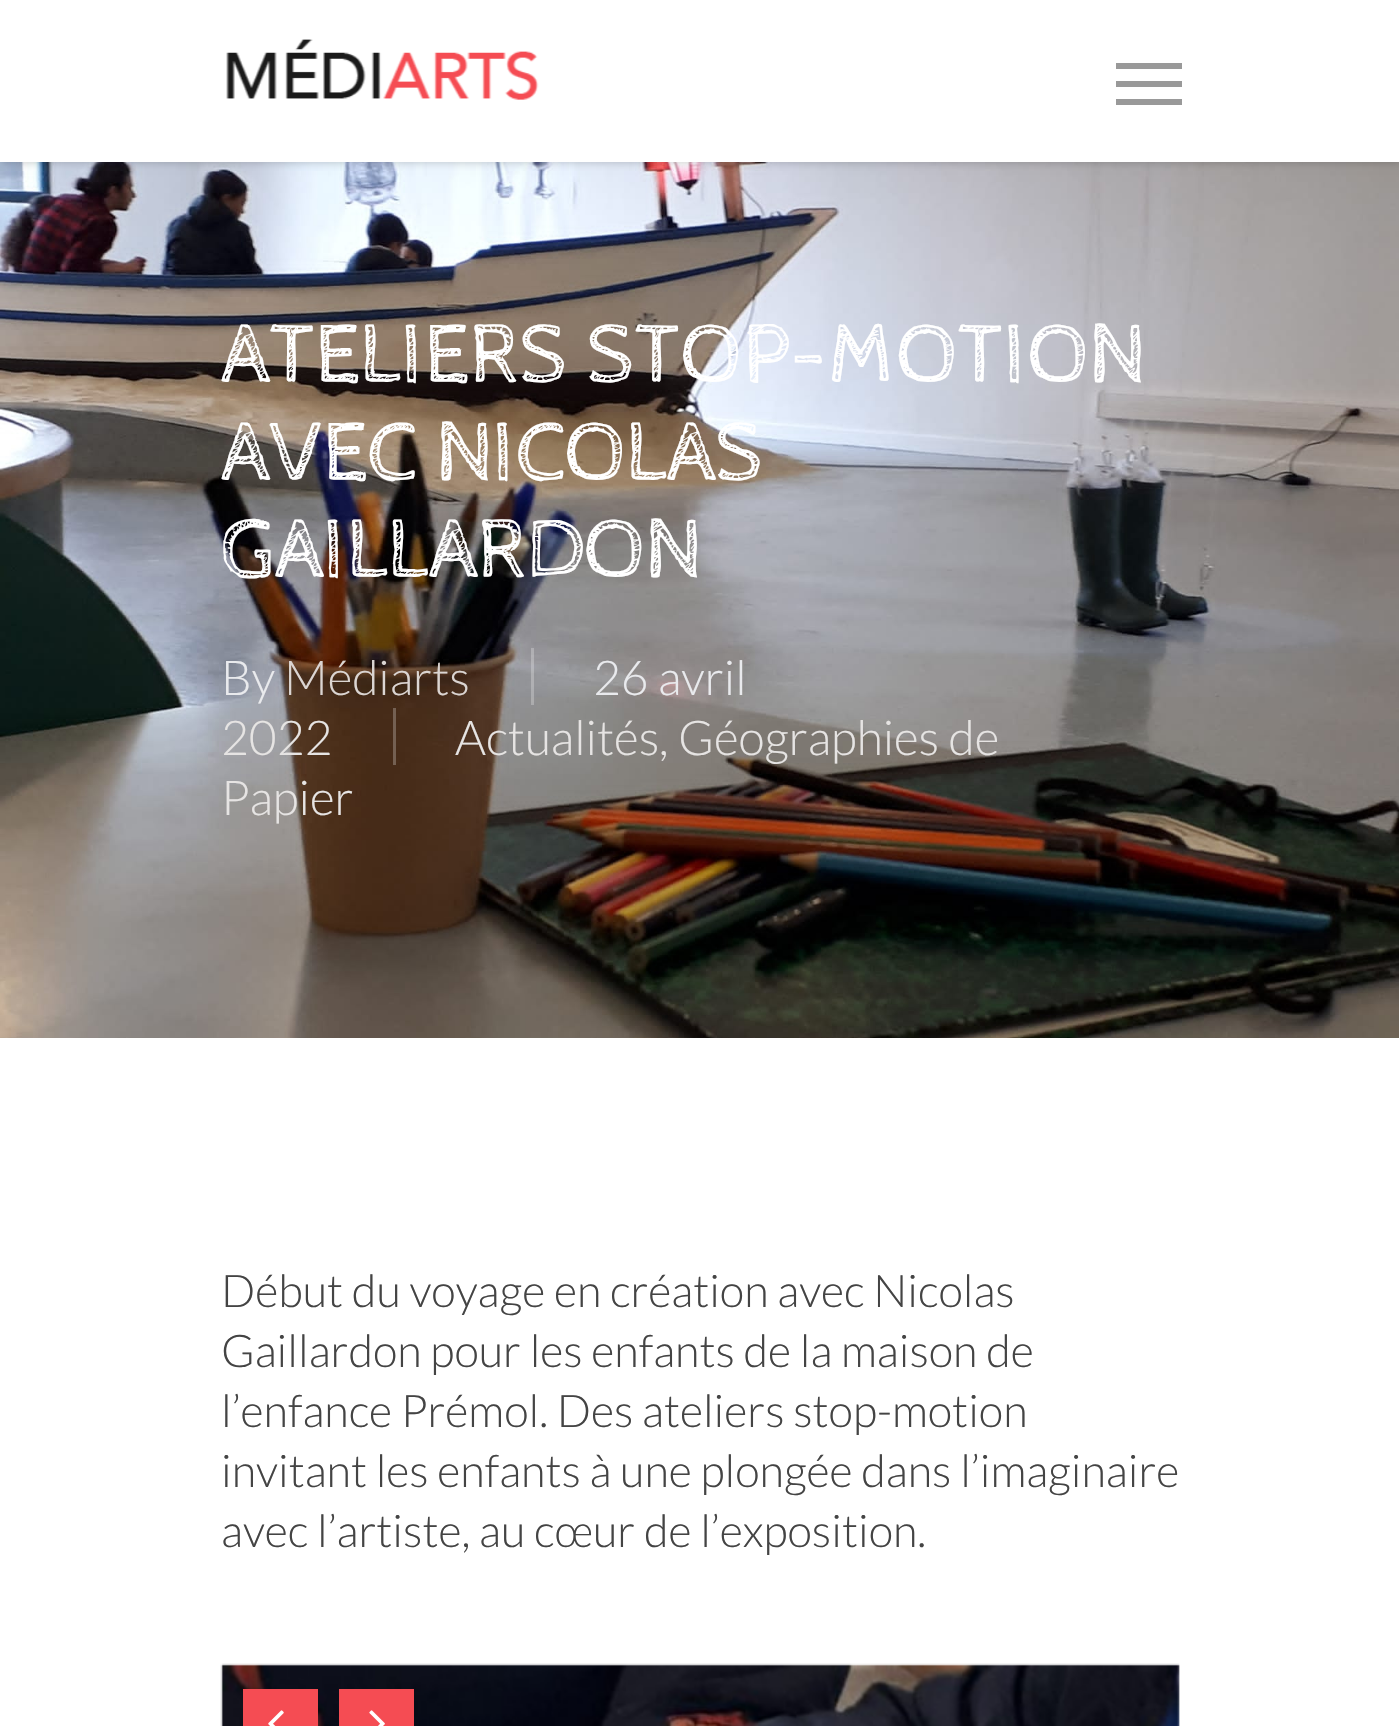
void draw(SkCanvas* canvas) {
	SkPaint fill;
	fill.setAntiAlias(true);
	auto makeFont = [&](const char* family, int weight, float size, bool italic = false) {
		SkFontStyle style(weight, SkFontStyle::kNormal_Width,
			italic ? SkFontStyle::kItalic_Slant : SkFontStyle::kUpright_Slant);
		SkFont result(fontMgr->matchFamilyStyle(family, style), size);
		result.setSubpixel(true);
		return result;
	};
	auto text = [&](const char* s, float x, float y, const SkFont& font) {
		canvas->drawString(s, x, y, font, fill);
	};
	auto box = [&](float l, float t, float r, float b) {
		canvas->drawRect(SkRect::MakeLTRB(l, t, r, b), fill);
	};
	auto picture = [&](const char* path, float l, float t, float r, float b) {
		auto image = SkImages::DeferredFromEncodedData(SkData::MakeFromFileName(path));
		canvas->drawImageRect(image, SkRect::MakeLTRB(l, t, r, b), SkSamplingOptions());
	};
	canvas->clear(0xFFFFFFFF);
	picture("image1.png", 0, 162, 1399, 1038);
	fill.setColor(0x38000000);
	fill.setMaskFilter(SkMaskFilter::MakeBlur(kNormal_SkBlurStyle, 4.5f));
	canvas->drawRect(SkRect::MakeLTRB(0, 0, 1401, 162), fill);
	fill.setMaskFilter(nullptr);
	fill.setColor(0xFFFFFFFF);
	box(0, 0, 1399, 162);
	picture("image0.png", 226, 39, 539, 100);
	fill.setColor(0xFF999999);
	box(1116, 63, 1182, 69);
	box(1116, 99, 1182, 105);
	box(1116, 81, 1182, 87);
	fill.setColor(0x40FFFFFF);
	box(531, 648, 534, 705);
	fill.setColor(0xFF746052);
	box(393, 708, 396, 765);
	picture("image2.png", 220, 1663, 1180, 1726);
	fill.setColor(0xFFF54C53);
	box(243, 1689, 318, 1726);
	picture("image3.png", 268, 1710, 284, 1726);
	box(339, 1689, 414, 1726);
	picture("image4.png", 369, 1710, 385, 1726);
	auto font1 = makeFont("Cabin Sketch", 400, 85.75f);
	fill.setColor(0xFFFFFFFF);
	text("ATELIERS STOP-MOTION", 221, 381, font1);
	text("AVEC NICOLAS", 221, 479, font1);
	text("GAILLARDON", 221, 576, font1);
	auto font2 = makeFont("Lato", 300, 48);
	fill.setColor(0xFFE9EAED);
	text("By", 221, 695, font2);
	fill.setColor(0xFFDBD5D2);
	text("Médiarts", 284, 695, font2);
	fill.setColor(0xFFE9EAED);
	text("26 avril", 593, 695, font2);
	fill.setColor(0xFFE6E4E3);
	text("2022", 221, 755, font2);
	text("Actualités", 455, 755, font2);
	text(",", 659, 755, font2);
	text("Géographies de", 678, 755, font2);
	text("Papier", 221, 815, font2);
	auto font3 = makeFont("Lato", 300, 45);
	fill.setColor(0xFF444444);
	text("Début du voyage en création avec Nicolas", 221, 1307, font3);
	text("Gaillardon pour les enfants de la maison de", 221, 1367, font3);
	text("l’enfance Prémol. Des ateliers stop-motion", 221, 1427, font3);
	text("invitant les enfants à une plongée dans l’imaginaire", 221, 1487, font3);
	text("avec l’artiste, au cœur de l’exposition.", 221, 1547, font3);
}
